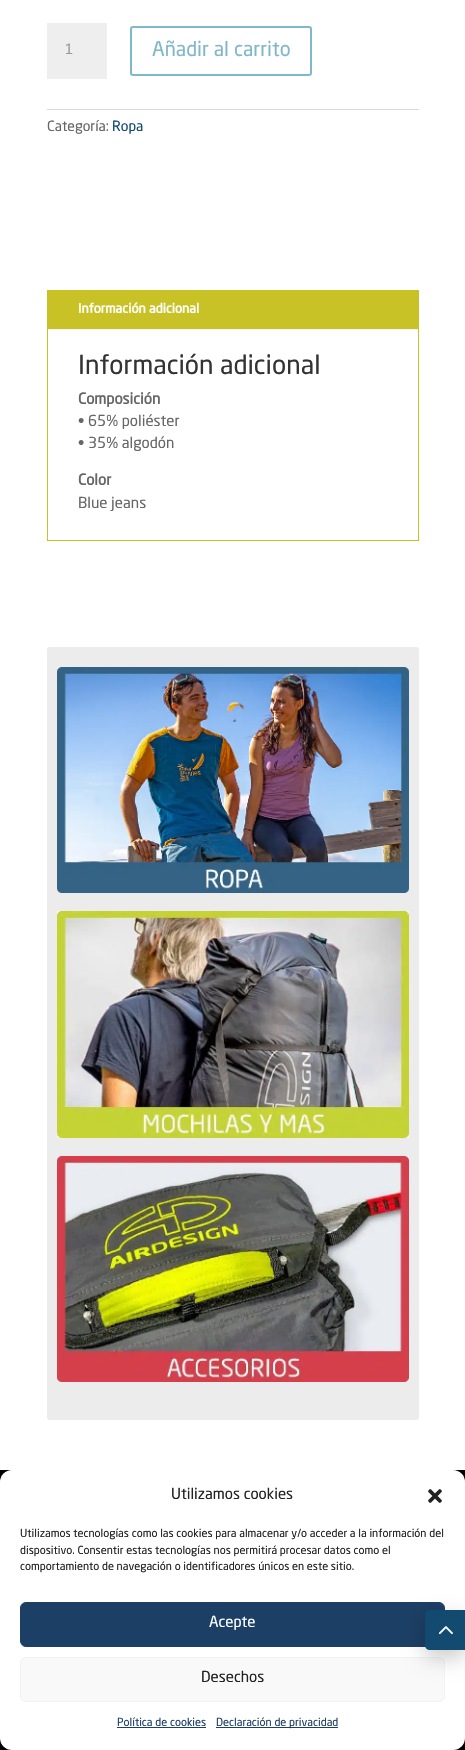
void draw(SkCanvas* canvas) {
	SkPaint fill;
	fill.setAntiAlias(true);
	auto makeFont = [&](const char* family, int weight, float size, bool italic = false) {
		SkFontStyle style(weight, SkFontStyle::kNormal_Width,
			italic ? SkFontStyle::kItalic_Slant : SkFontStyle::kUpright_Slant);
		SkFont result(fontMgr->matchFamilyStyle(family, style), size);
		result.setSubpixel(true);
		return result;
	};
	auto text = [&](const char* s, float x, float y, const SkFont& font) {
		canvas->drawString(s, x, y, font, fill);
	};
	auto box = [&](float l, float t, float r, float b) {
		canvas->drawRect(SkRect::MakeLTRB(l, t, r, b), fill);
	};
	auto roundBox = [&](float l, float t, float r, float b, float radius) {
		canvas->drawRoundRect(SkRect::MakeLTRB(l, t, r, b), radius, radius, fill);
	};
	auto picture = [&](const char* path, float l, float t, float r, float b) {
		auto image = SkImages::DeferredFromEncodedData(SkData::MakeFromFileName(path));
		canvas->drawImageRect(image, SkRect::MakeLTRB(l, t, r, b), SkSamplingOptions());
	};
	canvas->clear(0xFFFFFFFF);
	fill.setColor(0xFFEEEEEE);
	box(47, 23, 107, 79);
	fill.setStyle(SkPaint::kStroke_Style);
	fill.setStrokeWidth(2);
	fill.setColor(0xFF80B8CB);
	canvas->drawRoundRect(SkRect::MakeLTRB(131, 27, 311, 75), 2, 2, fill);
	fill.setStyle(SkPaint::kFill_Style);
	fill.setColor(0xFFDADADA);
	box(47, 109, 419, 110);
	fill.setStyle(SkPaint::kStroke_Style);
	fill.setStrokeWidth(1);
	fill.setColor(0xFFC8C226);
	canvas->drawRect(SkRect::MakeLTRB(47.5f, 290.5f, 418.5f, 540.5f), fill);
	fill.setStyle(SkPaint::kFill_Style);
	fill.setColor(0xFFF4F4F4);
	box(48, 329, 418, 330);
	fill.setColor(0xFFC8C226);
	box(48, 291, 418, 329);
	fill.setColor(0xFFECECEC);
	roundBox(47, 647, 419, 1420, 3);
	picture("image0.png", 57, 667, 409, 893);
	picture("image1.png", 57, 911, 409, 1138);
	picture("image2.png", 57, 1156, 409, 1382);
	fill.setColor(0xFF000000);
	box(0, 1470, 465, 1750);
	fill.setColor(0xFFFFFFFF);
	roundBox(0, 1470, 465, 1750, 12);
	picture("image3.png", 428, 1489, 442, 1503);
	fill.setColor(0xFF1C3F65);
	canvas->drawRoundRect(SkRect::MakeLTRB(20.5f, 1602.5f, 444.5f, 1646.5f), 5.5f, 5.5f, fill);
	fill.setStyle(SkPaint::kStroke_Style);
	canvas->drawRoundRect(SkRect::MakeLTRB(20.5f, 1602.5f, 444.5f, 1646.5f), 5.5f, 5.5f, fill);
	fill.setStyle(SkPaint::kFill_Style);
	fill.setColor(0xFFF9F9F9);
	canvas->drawRoundRect(SkRect::MakeLTRB(20.5f, 1657.5f, 444.5f, 1701.5f), 5.5f, 5.5f, fill);
	fill.setStyle(SkPaint::kStroke_Style);
	fill.setColor(0xFFF2F2F2);
	canvas->drawRoundRect(SkRect::MakeLTRB(20.5f, 1657.5f, 444.5f, 1701.5f), 5.5f, 5.5f, fill);
	fill.setStyle(SkPaint::kFill_Style);
	fill.setColor(0xFF1C3F65);
	box(117, 1727, 206, 1728);
	box(216, 1727, 338, 1728);
	fill.setColor(0x33000000);
	fill.setMaskFilter(SkMaskFilter::MakeBlur(kNormal_SkBlurStyle, 10));
	canvas->drawRoundRect(SkRect::MakeLTRB(425, 1618, 465, 1658), 5, 5, fill);
	fill.setMaskFilter(nullptr);
	fill.setColor(0xFF134A70);
	canvas->drawPath(SkPathBuilder().moveTo(430, 1610).lineTo(465, 1610).lineTo(465, 1650).lineTo(430, 1650).cubicTo(427, 1650, 425, 1648, 425, 1645).lineTo(425, 1615).cubicTo(425, 1612, 427, 1610, 430, 1610).close().detach(), fill);
	picture("image4.png", 438, 1626, 453, 1635);
	auto font1 = makeFont("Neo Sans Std", 400, 14);
	fill.setColor(0xFF999999);
	text("1", 65, 54, font1);
	auto font2 = makeFont("Neo Sans Std", 400, 20);
	fill.setColor(0xFF80B8CB);
	text("Añadir al carrito", 152, 56, font2);
	fill.setColor(0xFF666666);
	text("Categoría:", 47, 131, font1);
	fill.setColor(0xFF134A70);
	text("Ropa", 112, 131, font1);
	auto font3 = makeFont("Neo Sans Std", 700, 13);
	fill.setColor(0xFFFFFFFF);
	text("Información adicional", 78, 313, font3);
	auto font4 = makeFont("Neo Sans Std", 400, 26);
	fill.setColor(0xFF333333);
	text("Información adicional", 78, 374, font4);
	auto font5 = makeFont("Neo Sans Std", 700, 15);
	fill.setColor(0xFF666666);
	text("Composición", 78, 404, font5);
	auto font6 = makeFont("Neo Sans Std", 400, 15);
	text("• 65% poliéster", 78, 426, font6);
	text("• 35% algodón", 78, 448, font6);
	text("Color", 78, 485, font5);
	text("Blue jeans", 78, 508, font6);
	fill.setColor(0xFF222222);
	text("Utilizamos cookies", 171, 1499, font6);
	auto font7 = makeFont("Neo Sans Std", 400, 11);
	text("Utilizamos tecnologías como las cookies para almacenar y/o acceder a la información del", 20, 1537, font7);
	text("dispositivo. Consentir estas tecnologías nos permitirá procesar datos como el", 20, 1554, font7);
	text("comportamiento de navegación o identificadores únicos en este sitio.", 20, 1570, font7);
	fill.setColor(0xFFFFFFFF);
	text("Acepte", 209, 1627, font6);
	fill.setColor(0xFF222222);
	text("Desechos", 201, 1682, font6);
	fill.setColor(0xFF1C3F65);
	text("Política de cookies", 117, 1726, font7);
	text("Declaración de privacidad", 216, 1726, font7);
}
